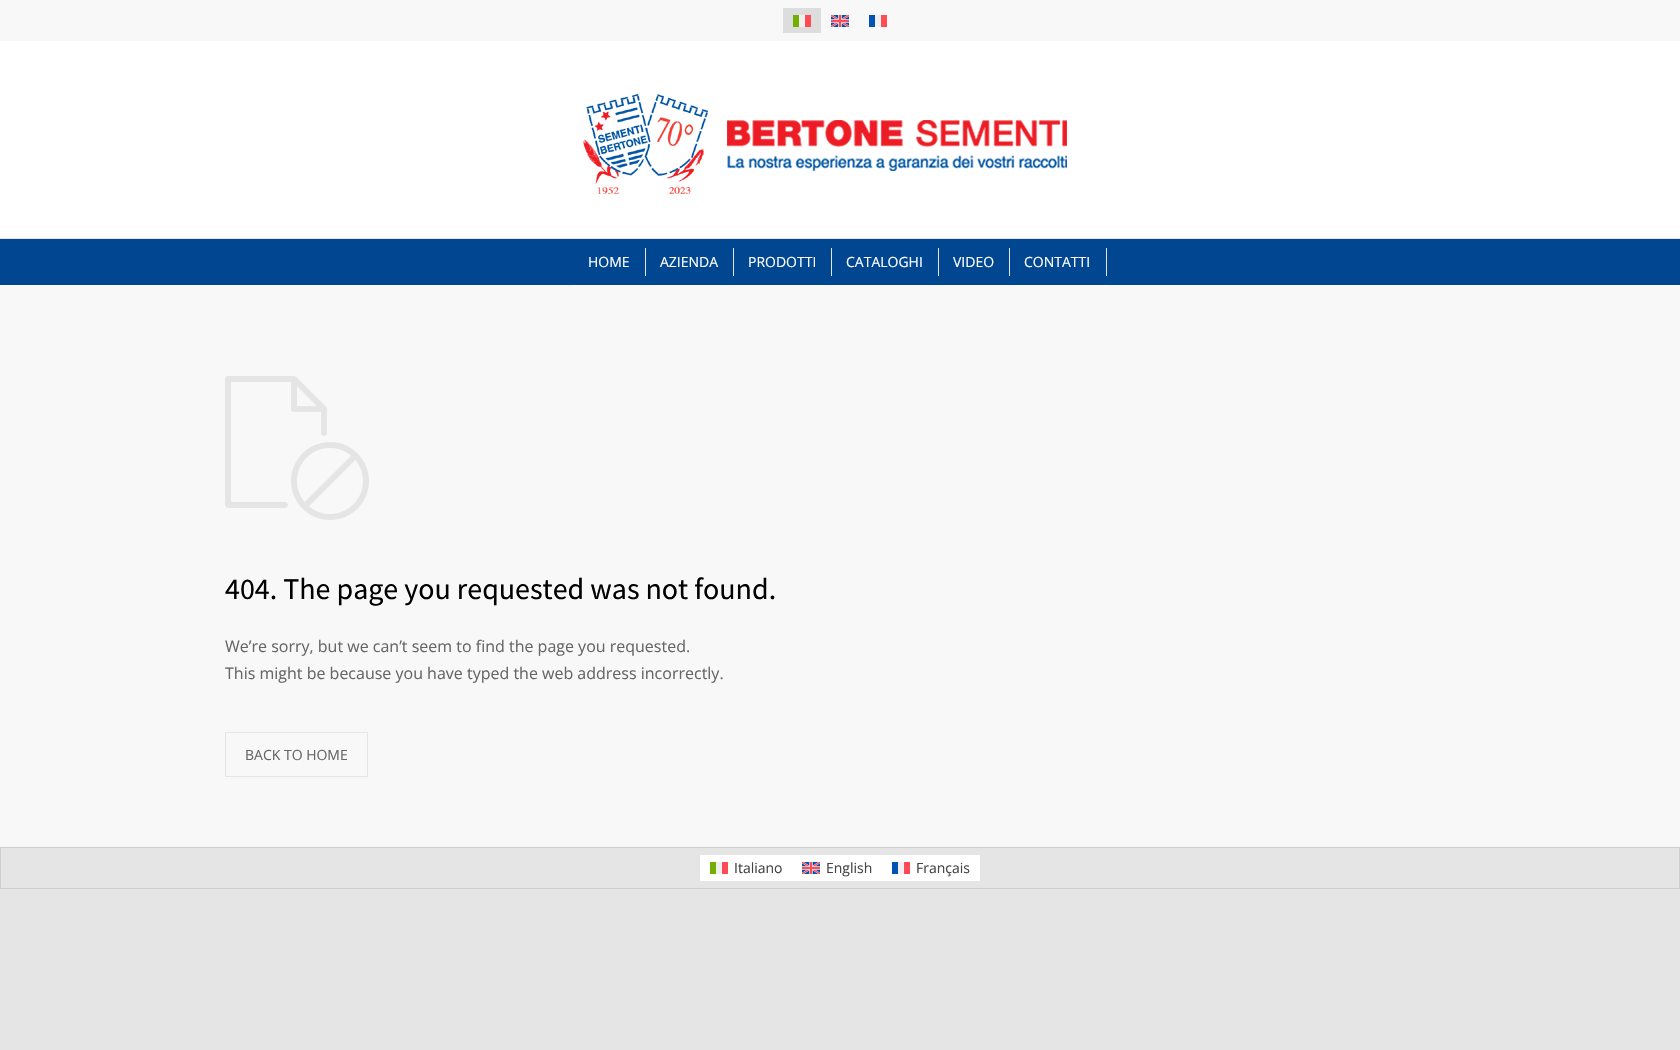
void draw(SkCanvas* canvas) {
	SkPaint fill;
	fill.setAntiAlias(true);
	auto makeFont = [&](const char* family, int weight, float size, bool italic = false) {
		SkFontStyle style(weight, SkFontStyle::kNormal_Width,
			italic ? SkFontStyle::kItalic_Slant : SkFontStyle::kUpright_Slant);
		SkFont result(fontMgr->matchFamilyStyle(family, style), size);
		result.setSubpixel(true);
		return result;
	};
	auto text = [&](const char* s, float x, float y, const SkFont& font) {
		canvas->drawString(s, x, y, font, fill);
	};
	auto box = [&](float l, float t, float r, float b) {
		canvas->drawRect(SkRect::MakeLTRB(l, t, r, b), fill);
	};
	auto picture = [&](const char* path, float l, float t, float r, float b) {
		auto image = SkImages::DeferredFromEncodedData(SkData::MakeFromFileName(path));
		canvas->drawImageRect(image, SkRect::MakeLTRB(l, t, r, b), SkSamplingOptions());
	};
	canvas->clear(0xFFE5E5E5);
	fill.setColor(0xFFF8F8F8);
	box(0, 0, 1680, 847);
	fill.setColor(0xFFDDDDDD);
	box(783, 8, 821, 33);
	fill.setColor(0xFF73AF00);
	box(793, 15, 799, 27);
	fill.setColor(0xFFF0F0F0);
	box(799, 15, 805, 27);
	fill.setColor(0xFFFF4B55);
	box(805, 15, 811, 27);
	picture("image0.png", 831, 15, 849, 27);
	fill.setColor(0xFF0052B4);
	box(869, 15, 875, 27);
	fill.setColor(0xFFF0F0F0);
	box(875, 15, 881, 27);
	fill.setColor(0xFFFF4B55);
	box(881, 15, 887, 27);
	fill.setColor(0xFFFFFFFF);
	box(0, 41, 1680, 238);
	picture("image1.png", 583, 94, 1067, 194);
	fill.setColor(0xFFE5E5E5);
	box(0, 238, 1680, 239);
	fill.setColor(0xFF004690);
	box(0, 239, 1680, 285);
	fill.setColor(0xFFFFFFFF);
	box(573, 285, 1107, 286);
	fill.setColor(0xFFE5E5E5);
	box(645, 248, 646, 276);
	box(733, 248, 734, 276);
	box(831, 248, 832, 276);
	box(938, 248, 939, 276);
	box(1009, 248, 1010, 276);
	box(1106, 248, 1107, 276);
	picture("image2.png", 225, 376, 369, 520);
	fill.setStyle(SkPaint::kStroke_Style);
	fill.setStrokeWidth(1);
	canvas->drawRect(SkRect::MakeLTRB(225.5f, 732.5f, 367.5f, 776.5f), fill);
	fill.setColor(0xFFCDCDCD);
	canvas->drawRect(SkRect::MakeLTRB(0.5f, 847.5f, 1679.5f, 888.5f), fill);
	fill.setStyle(SkPaint::kFill_Style);
	fill.setColor(0xFFFFFFFF);
	box(700, 855, 980, 881);
	fill.setColor(0xFF73AF00);
	box(710, 862, 716, 874);
	fill.setColor(0xFFF0F0F0);
	box(716, 862, 722, 874);
	fill.setColor(0xFFFF4B55);
	box(722, 862, 728, 874);
	picture("image0.png", 802, 862, 820, 874);
	fill.setColor(0xFF0052B4);
	box(892, 862, 898, 874);
	fill.setColor(0xFFF0F0F0);
	box(898, 862, 904, 874);
	fill.setColor(0xFFFF4B55);
	box(904, 862, 910, 874);
	auto font1 = makeFont("Open Sans", 400, 14);
	fill.setColor(0xFFFFFFFF);
	text("HOME", 588, 267, font1);
	text("AZIENDA", 660, 267, font1);
	text("PRODOTTI", 748, 267, font1);
	text("CATALOGHI", 846, 267, font1);
	text("VIDEO", 953, 267, font1);
	text("CONTATTI", 1024, 267, font1);
	auto font2 = makeFont("Source Sans Pro", 400, 30);
	fill.setColor(0xFF000000);
	text("404. The page you requested was not found.", 225, 599, font2);
	auto font3 = makeFont("Open Sans", 400, 16);
	fill.setColor(0xFF666666);
	text("We’re sorry, but we can’t seem to find the page you requested.", 225, 652, font3);
	text("This might be because you have typed the web address incorrectly.", 225, 679, font3);
	text("BACK TO HOME", 245, 760, font1);
	fill.setColor(0xFF444444);
	text("Italiano", 734, 873, font1);
	text("English", 826, 873, font1);
	text("Français", 916, 873, font1);
}
